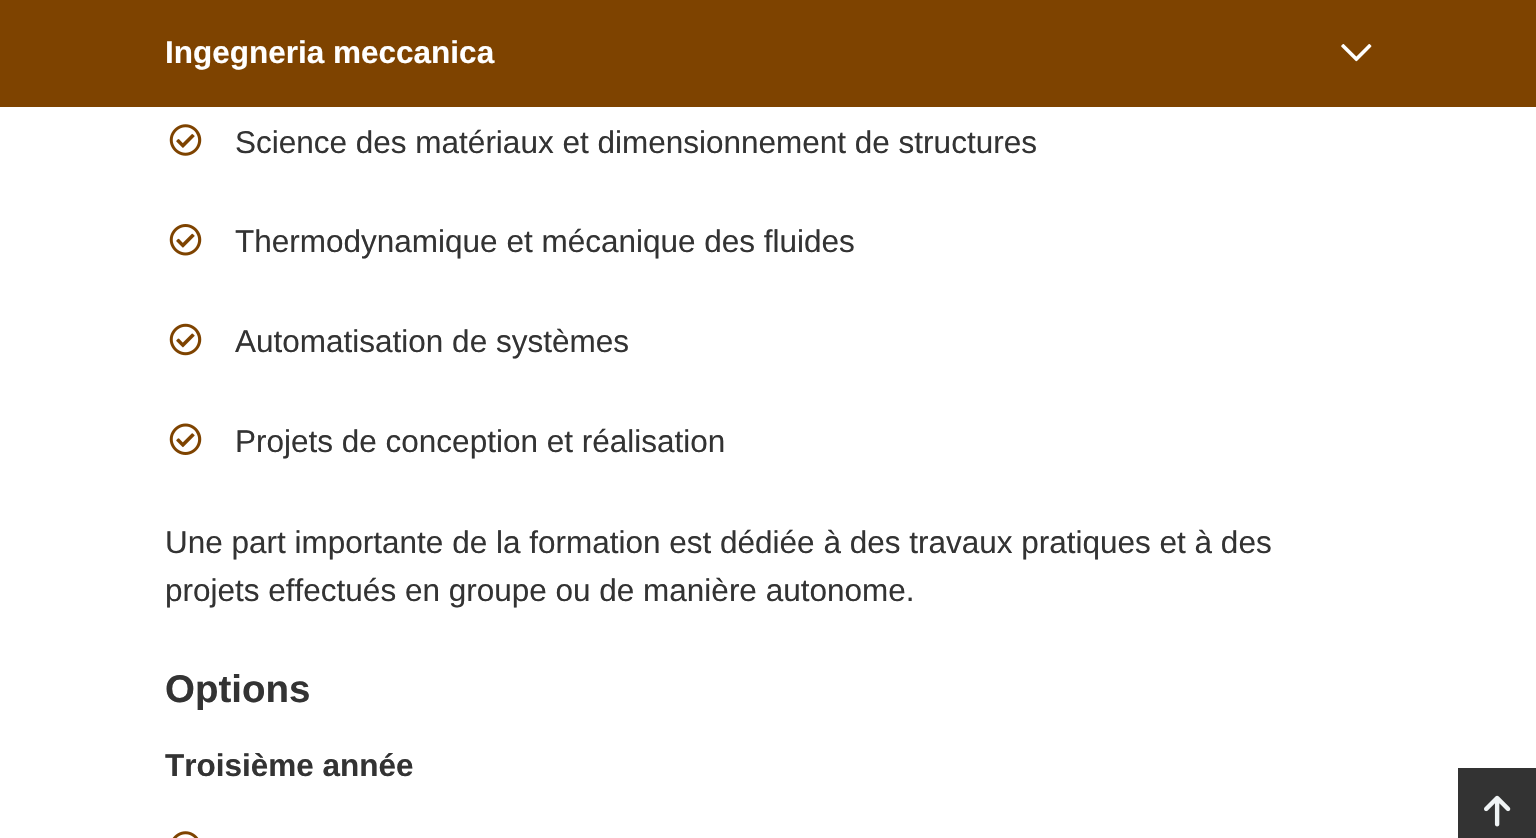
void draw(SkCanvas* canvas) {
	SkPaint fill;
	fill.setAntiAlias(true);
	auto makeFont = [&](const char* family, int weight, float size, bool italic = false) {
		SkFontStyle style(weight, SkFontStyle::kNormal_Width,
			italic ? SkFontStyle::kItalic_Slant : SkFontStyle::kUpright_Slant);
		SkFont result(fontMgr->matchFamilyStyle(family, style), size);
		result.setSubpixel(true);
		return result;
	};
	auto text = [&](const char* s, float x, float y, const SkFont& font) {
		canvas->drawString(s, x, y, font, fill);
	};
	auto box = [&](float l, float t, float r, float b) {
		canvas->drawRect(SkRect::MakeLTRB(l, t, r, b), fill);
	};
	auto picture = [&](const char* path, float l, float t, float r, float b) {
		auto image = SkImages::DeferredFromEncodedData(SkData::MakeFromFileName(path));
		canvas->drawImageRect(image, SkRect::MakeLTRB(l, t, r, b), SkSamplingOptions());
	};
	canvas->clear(0xFFFFFFFF);
	fill.setStyle(SkPaint::kStroke_Style);
	fill.setStrokeWidth(4);
	fill.setColor(0xFF7E4300);
	canvas->drawRect(SkRect::MakeLTRB(2, 2, 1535, 105), fill);
	fill.setStyle(SkPaint::kFill_Style);
	box(4, 4, 1533, 103);
	picture("image0.png", 1341, 44, 1372, 62);
	picture("image1.png", 169, 124, 202, 156);
	picture("image2.png", 169, 224, 202, 256);
	picture("image3.png", 169, 323, 202, 356);
	picture("image4.png", 169, 423, 202, 455);
	picture("image5.png", 172, 831, 199, 838);
	fill.setColor(0xFF333333);
	box(1458, 768, 1536, 838);
	picture("image6.png", 1484, 795, 1511, 827);
	auto font1 = makeFont("Liberation Sans", 700, 31.5f);
	fill.setColor(0xFFFFFFFF);
	text("Ingegneria meccanica", 165, 63, font1);
	auto font2 = makeFont("Liberation Sans", 400, 31.5f);
	fill.setColor(0xFF333333);
	text("Science des matériaux et dimensionnement de structures", 235, 153, font2);
	text("Thermodynamique et mécanique des fluides", 235, 252, font2);
	text("Automatisation de systèmes", 235, 352, font2);
	text("Projets de conception et réalisation", 235, 452, font2);
	text("Une part importante de la formation est dédiée à des travaux pratiques et à des", 165, 553, font2);
	text("projets effectués en groupe ou de manière autonome.", 165, 601, font2);
	auto font3 = makeFont("Liberation Sans", 700, 38.5f);
	text("Options", 165, 702, font3);
	text("Troisième année", 165, 776, font1);
}
